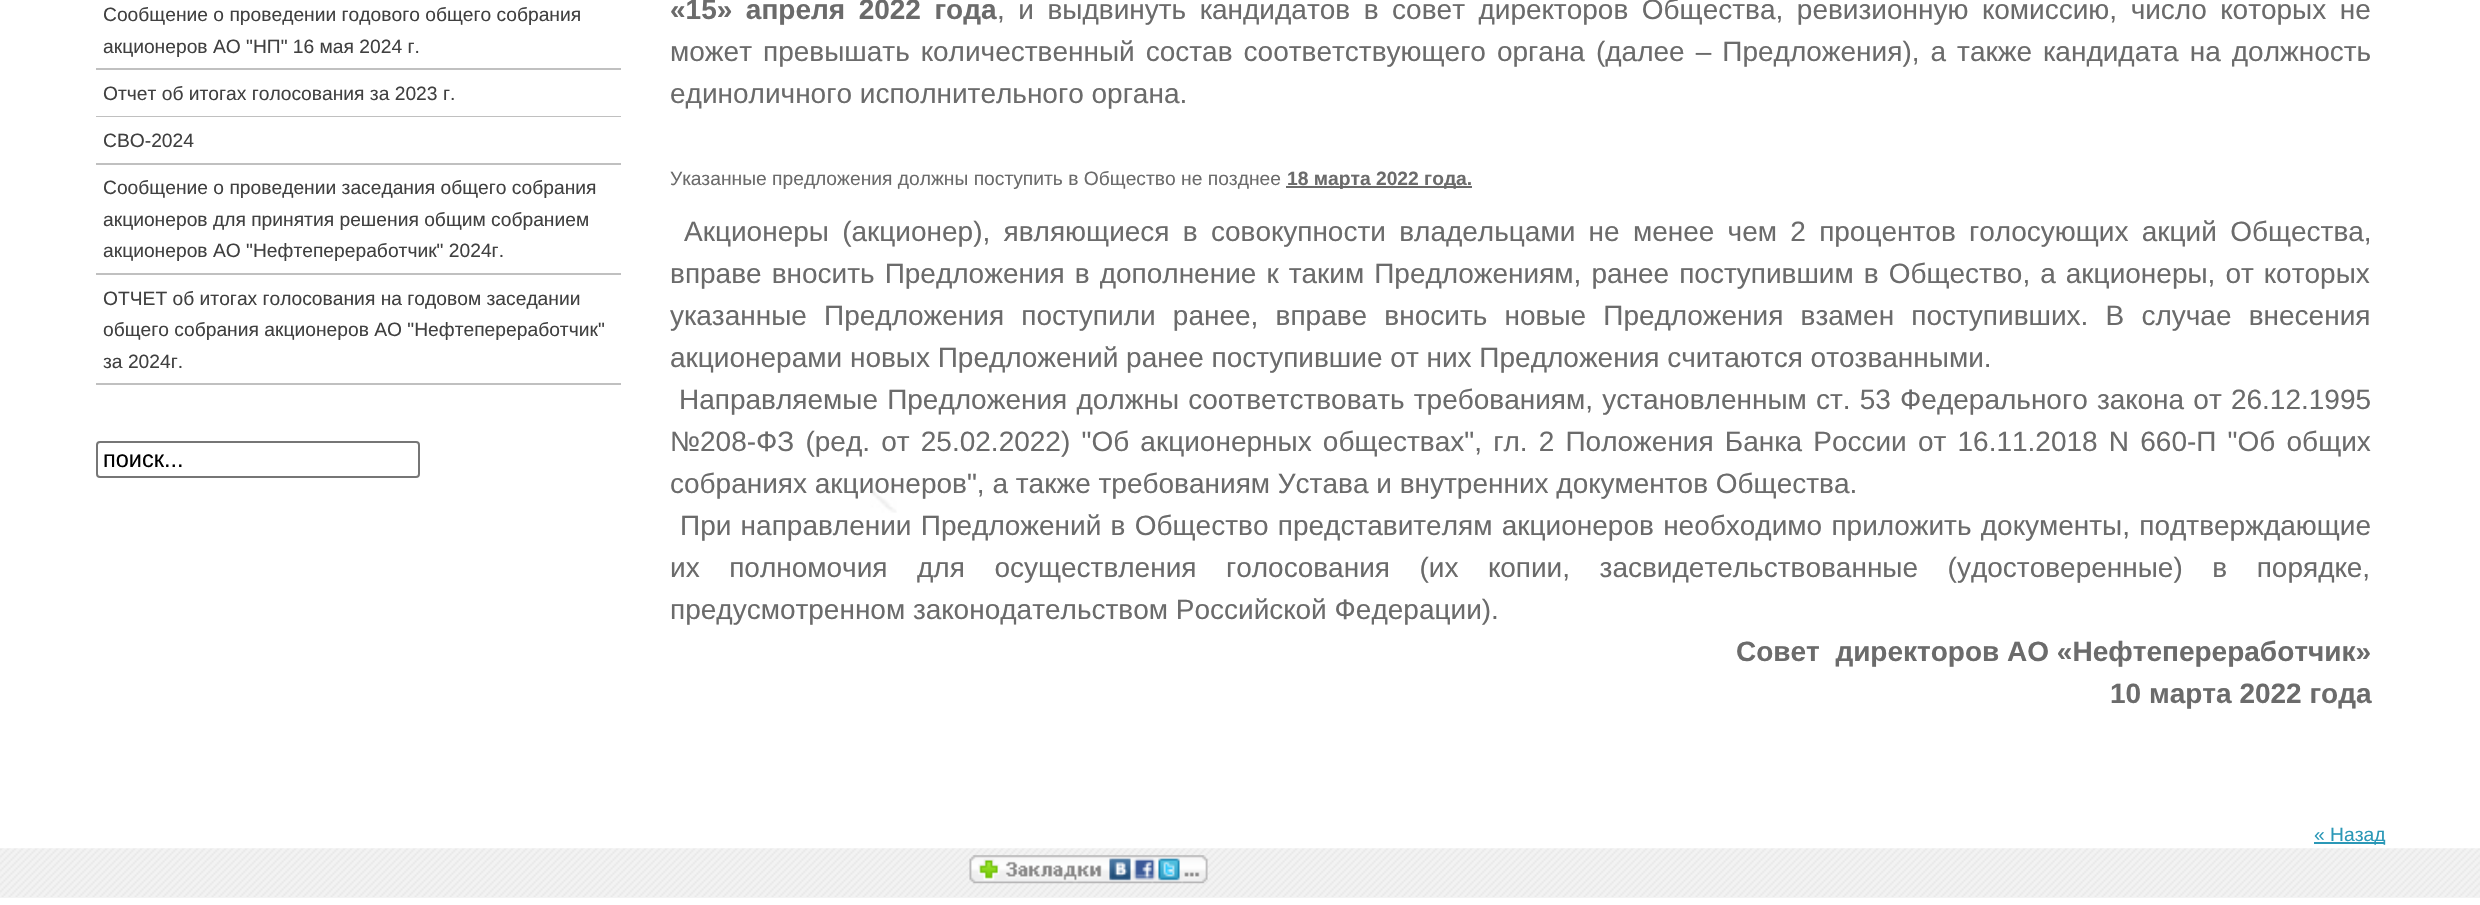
void draw(SkCanvas* canvas) {
	SkPaint fill;
	fill.setAntiAlias(true);
	auto makeFont = [&](const char* family, int weight, float size, bool italic = false) {
		SkFontStyle style(weight, SkFontStyle::kNormal_Width,
			italic ? SkFontStyle::kItalic_Slant : SkFontStyle::kUpright_Slant);
		SkFont result(fontMgr->matchFamilyStyle(family, style), size);
		result.setSubpixel(true);
		return result;
	};
	auto text = [&](const char* s, float x, float y, const SkFont& font) {
		canvas->drawString(s, x, y, font, fill);
	};
	auto spacedText = [&](const char* s, float x, float y, const SkFont& font, const SkPaint& ink, float letter, float word) {
		std::vector<SkGlyphID> glyphs(font.countText(s, strlen(s), SkTextEncoding::kUTF8));
		std::vector<float> xs(glyphs.size());
		font.textToGlyphs(s, strlen(s), SkTextEncoding::kUTF8, glyphs);
		font.getXPos(glyphs, xs, x);
		float extra = 0;
		for (size_t i = 0; i < glyphs.size(); i++) {
			xs[i] += extra;
			extra += letter + word * (glyphs[i] == font.unicharToGlyph(' '));
		}
		canvas->drawTextBlob(SkTextBlob::MakeFromPosHGlyphs(glyphs, xs, y, font), 0, 0, ink);
	};
	auto box = [&](float l, float t, float r, float b) {
		canvas->drawRect(SkRect::MakeLTRB(l, t, r, b), fill);
	};
	auto picture = [&](const char* path, float l, float t, float r, float b) {
		auto image = SkImages::DeferredFromEncodedData(SkData::MakeFromFileName(path));
		canvas->drawImageRect(image, SkRect::MakeLTRB(l, t, r, b), SkSamplingOptions());
	};
	canvas->clear(0xFFFFFFFF);
	picture("image0.png", 870, 489, 897, 513);
	fill.setColor(0xFFC0C0C0);
	box(96, 68, 621, 70);
	box(96, 116, 621, 117);
	box(96, 163, 621, 165);
	box(96, 273, 621, 275);
	box(96, 383, 621, 385);
	fill.setStyle(SkPaint::kStroke_Style);
	fill.setStrokeWidth(2);
	fill.setColor(0xFF767676);
	canvas->drawRoundRect(SkRect::MakeLTRB(97, 442, 419, 477), 3, 3, fill);
	fill.setStyle(SkPaint::kFill_Style);
	fill.setColor(0xFF6B6B6B);
	box(1286, 186, 1472, 188);
	fill.setColor(0xFF2B98B7);
	box(2314, 842, 2385, 844);
	fill.setColor(0xFFF3F3F3);
	box(0, 897, 2480, 898);
	picture("image1.png", 0, 848, 2480, 897);
	picture("image2.png", 969, 855, 1208, 884);
	auto font1 = makeFont("Liberation Sans", 400, 19.25f);
	fill.setColor(0xFF404040);
	text("Сообщение о проведении годового общего собрания", 103, 21, font1);
	text("акционеров АО \"НП\" 16 мая 2024 г.", 103, 53, font1);
	text("Отчет об итогах голосования за 2023 г.", 103, 100, font1);
	text("СВО-2024", 103, 147, font1);
	text("Сообщение о проведении заседания общего собрания", 103, 194, font1);
	text("акционеров для принятия решения общим собранием", 103, 226, font1);
	text("акционеров АО \"Нефтепереработчик\" 2024г.", 103, 257, font1);
	text("ОТЧЕТ об итогах голосования на годовом заседании", 103, 305, font1);
	text("общего собрания акционеров АО \"Нефтепереработчик\"", 103, 336, font1);
	text("за 2024г.", 103, 368, font1);
	auto font2 = makeFont("Liberation Sans", 400, 23.5f);
	fill.setColor(0xFF000000);
	text("поиск...", 103, 467, font2);
	auto font3 = makeFont("Liberation Sans", 700, 28);
	fill.setColor(0xFF6B6B6B);
	spacedText("«15» апреля 2022 года", 670, 19, font3, fill, 0, 5.75f);
	auto font4 = makeFont("Liberation Sans", 400, 28);
	spacedText(", и выдвинуть кандидатов в совет директоров Общества, ревизионную комиссию, число которых не", 997, 19, font4, fill, 0, 5.75f);
	spacedText("может превышать количественный состав соответствующего органа (далее – Предложения), а также кандидата на должность", 670, 61, font4, fill, 0, 3.25f);
	text("единоличного исполнительного органа.", 670, 103, font4);
	text("Указанные предложения должны поступить в Общество не позднее", 670, 185, font1);
	auto font5 = makeFont("Liberation Sans", 700, 19.25f);
	text("18 марта 2022 года.", 1287, 185, font5);
	spacedText("Акционеры (акционер), являющиеся в совокупности владельцами не менее чем 2 процентов голосующих акций Общества,", 684, 241, font4, fill, 0, 5.5f);
	spacedText("вправе вносить Предложения в дополнение к таким Предложениям, ранее поступившим в Общество, а акционеры, от которых", 670, 283, font4, fill, 0, 2.25f);
	spacedText("указанные Предложения поступили ранее, вправе вносить новые Предложения взамен поступивших. В случае внесения", 670, 325, font4, fill, 0, 9.4f);
	text("акционерами новых Предложений ранее поступившие от них Предложения считаются отозванными.", 670, 367, font4);
	spacedText("Направляемые Предложения должны соответствовать требованиям, установленным ст. 53 Федерального закона от 26.12.1995", 679, 409, font4, fill, 0, 1.4f);
	spacedText("№208-ФЗ (ред. от 25.02.2022) \"Об акционерных обществах\", гл. 2 Положения Банка России от 16.11.2018 N 660-П \"Об общих", 670, 451, font4, fill, 0, 3.4f);
	text("собраниях акционеров\", а также требованиям Устава и внутренних документов Общества.", 670, 493, font4);
	spacedText("При направлении Предложений в Общество представителям акционеров необходимо приложить документы, подтверждающие", 680, 535, font4, fill, 0, 1.5f);
	spacedText("их полномочия для осуществления голосования (их копии, засвидетельствованные (удостоверенные) в порядке,", 670, 577, font4, fill, 0, 21.75f);
	text("предусмотренном законодательством Российской Федерации).", 670, 619, font4);
	text("Совет  директоров АО «Нефтепереработчик»", 1736, 661, font3);
	text("10 марта 2022 года", 2110, 703, font3);
	fill.setColor(0xFF2B98B7);
	text("« Назад", 2314, 841, font1);
}
